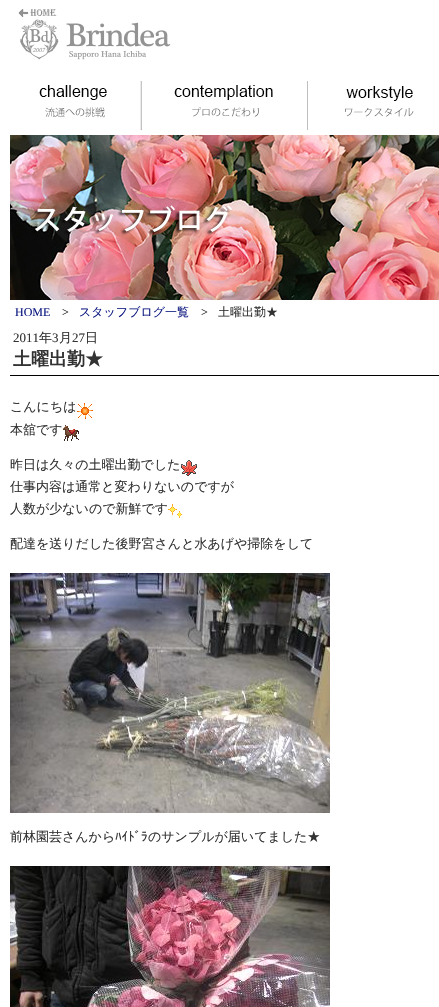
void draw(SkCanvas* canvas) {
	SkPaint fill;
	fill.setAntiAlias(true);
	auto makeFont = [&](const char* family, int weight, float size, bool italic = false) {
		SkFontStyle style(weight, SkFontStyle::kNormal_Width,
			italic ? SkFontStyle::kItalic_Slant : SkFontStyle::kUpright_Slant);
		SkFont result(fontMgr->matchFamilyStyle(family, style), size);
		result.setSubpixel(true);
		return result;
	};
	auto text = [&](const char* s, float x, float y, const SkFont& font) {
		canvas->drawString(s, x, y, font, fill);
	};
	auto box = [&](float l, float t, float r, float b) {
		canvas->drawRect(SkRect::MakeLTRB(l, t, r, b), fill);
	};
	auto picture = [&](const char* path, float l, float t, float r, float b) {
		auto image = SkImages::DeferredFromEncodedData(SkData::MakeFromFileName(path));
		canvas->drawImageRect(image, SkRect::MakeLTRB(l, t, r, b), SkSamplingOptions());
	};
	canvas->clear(0xFFFFFFFF);
	picture("image0.png", 18, 9, 171, 60);
	picture("image1.png", 39, 81, 142, 130);
	picture("image2.png", 174, 81, 308, 130);
	picture("image3.png", 345, 86, 414, 117);
	picture("image4.png", 10, 135, 439, 300);
	fill.setColor(0xFF000000);
	box(10, 375, 439, 376);
	picture("image5.png", 77, 403, 93, 419);
	picture("image6.png", 63, 425, 79, 441);
	picture("image7.png", 181, 460, 197, 476);
	picture("image8.png", 168, 504, 182, 518);
	picture("image9.png", 10, 573, 330, 813);
	picture("image10.png", 10, 866, 330, 1007);
	auto font1 = makeFont("Liberation Serif", 400, 12);
	fill.setColor(0xFF0E1A81);
	text("HOME", 15, 316, font1);
	fill.setColor(0xFF333333);
	text(">", 62, 316, font1);
	auto font2 = makeFont("WenQuanYi Zen Hei", 500, 12);
	fill.setColor(0xFF0E1A81);
	text("スタッフブログ一覧", 79, 316, font2);
	fill.setColor(0xFF333333);
	text(">", 201, 316, font1);
	text("土曜出勤★", 218, 316, font2);
	auto font3 = makeFont("Liberation Serif", 400, 13);
	text("2011", 13, 342, font3);
	auto font4 = makeFont("WenQuanYi Zen Hei", 500, 13);
	text("年", 39, 342, font4);
	text("3", 52, 342, font3);
	text("月", 59, 342, font4);
	text("27", 72, 342, font3);
	text("日", 85, 342, font4);
	auto font5 = makeFont("WenQuanYi Zen Hei", 700, 18);
	text("土曜出勤★", 13, 365, font5);
	text("こんにちは", 10, 411, font4);
	text("本舘です", 10, 434, font4);
	text("昨日は久々の土曜出勤でした", 10, 469, font4);
	text("仕事内容は通常と変わりないのですが", 10, 491, font4);
	text("人数が少ないので新鮮です", 10, 513, font4);
	text("配達を送りだした後野宮さんと水あげや掃除をして", 10, 548, font4);
	text("前林園芸さんから", 10, 841, font4);
	auto font6 = makeFont("IPAPGothic", 400, 13);
	text("ﾊｲﾄﾞﾗ", 115, 841, font6);
	text("のサンプルが届いてました★", 148, 841, font4);
}
